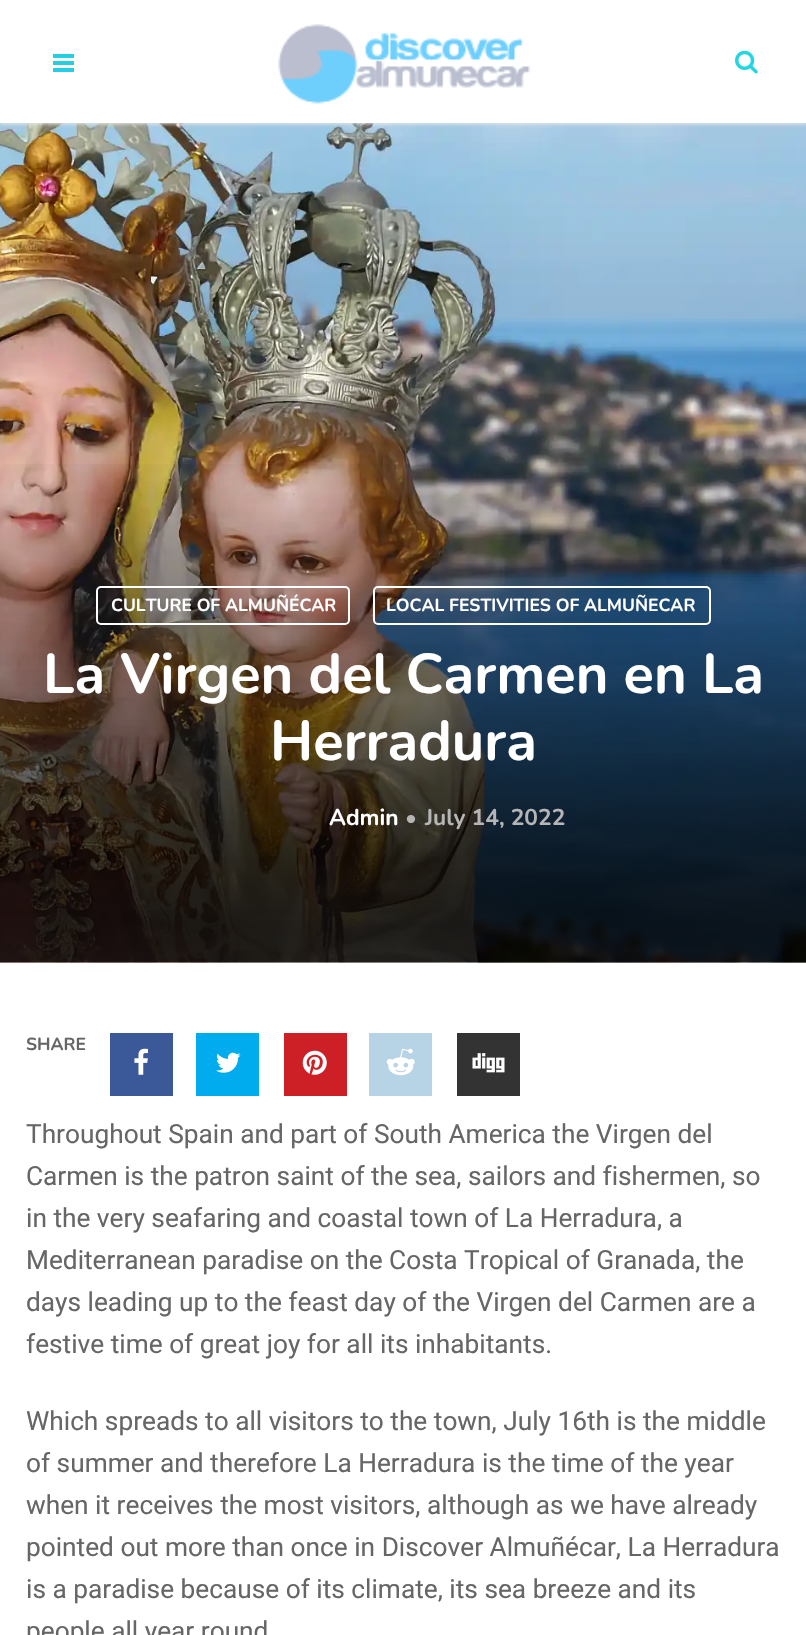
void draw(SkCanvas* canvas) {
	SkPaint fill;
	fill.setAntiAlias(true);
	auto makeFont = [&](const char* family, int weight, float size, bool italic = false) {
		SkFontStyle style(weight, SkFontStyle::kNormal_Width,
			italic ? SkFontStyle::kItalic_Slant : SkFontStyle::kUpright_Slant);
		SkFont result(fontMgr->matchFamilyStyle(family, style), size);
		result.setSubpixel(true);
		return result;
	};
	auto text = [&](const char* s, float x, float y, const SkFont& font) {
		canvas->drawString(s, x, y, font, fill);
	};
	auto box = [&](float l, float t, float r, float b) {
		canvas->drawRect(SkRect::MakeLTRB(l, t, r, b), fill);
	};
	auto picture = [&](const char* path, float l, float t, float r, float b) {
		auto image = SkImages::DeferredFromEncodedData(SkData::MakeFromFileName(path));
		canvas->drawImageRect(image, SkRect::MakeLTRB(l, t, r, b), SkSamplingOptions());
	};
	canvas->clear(0xFFFFFFFF);
	picture("image2.png", 0, 123, 806, 963);
	fill.setColor(0xFFEAEAEA);
	fill.setMaskFilter(SkMaskFilter::MakeBlur(kNormal_SkBlurStyle, 2));
	canvas->drawRect(SkRect::MakeLTRB(0, 2, 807, 124), fill);
	fill.setMaskFilter(nullptr);
	fill.setColor(0xFFFFFFFF);
	box(0, 0, 806, 123);
	fill.setColor(0xFF24CFE2);
	box(53, 54, 74, 58);
	box(53, 61, 74, 65);
	box(53, 68, 74, 72);
	picture("image0.png", 278, 24, 531, 104);
	picture("image1.png", 735, 50, 758, 74);
	picture("image3.png", 0, 464, 806, 963);
	fill.setStyle(SkPaint::kStroke_Style);
	fill.setStrokeWidth(2);
	fill.setColor(0xFFFFFFFF);
	canvas->drawRoundRect(SkRect::MakeLTRB(97, 587, 349, 624), 4, 4, fill);
	canvas->drawRoundRect(SkRect::MakeLTRB(374, 587, 710, 624), 4, 4, fill);
	fill.setStyle(SkPaint::kFill_Style);
	fill.setColor(0xFF3B5998);
	box(110, 1033, 173, 1096);
	picture("image4.png", 134, 1048, 148, 1075);
	fill.setColor(0xFF00ACED);
	box(196, 1033, 259, 1096);
	picture("image5.png", 216, 1052, 241, 1073);
	fill.setColor(0xFFCC2026);
	box(284, 1033, 347, 1096);
	picture("image6.png", 302, 1050, 327, 1075);
	fill.setColor(0xFFB6D4E5);
	box(369, 1033, 432, 1096);
	picture("image7.png", 386, 1048, 415, 1076);
	fill.setColor(0xFF333333);
	box(457, 1033, 520, 1096);
	picture("image8.png", 472, 1053, 505, 1073);
	auto font1 = makeFont("Nunito", 200, 17.5f);
	fill.setColor(0xFFFFFFFF);
	text("CULTURE OF ALMUÑÉCAR", 111, 611, font1);
	text("LOCAL FESTIVITIES OF ALMUÑECAR", 386, 611, font1);
	auto font2 = makeFont("Nunito", 200, 56);
	text("La Virgen del Carmen en La", 43, 693, font2);
	text("Herradura", 270, 760, font2);
	auto font3 = makeFont("Nunito", 200, 22.75f);
	text("Admin", 329, 825, font3);
	fill.setColor(0xFFB5B5B5);
	text("•", 405, 825, font3);
	text("July 14, 2022", 425, 825, font3);
	fill.setColor(0xFF666666);
	text("SHARE", 26, 1050, font1);
	auto font4 = makeFont("Roboto", 400, 26.25f);
	text("Throughout Spain and part of South America the Virgen del", 26, 1143, font4);
	text("Carmen is the patron saint of the sea, sailors and fishermen, so", 26, 1185, font4);
	text("in the very seafaring and coastal town of La Herradura, a", 26, 1227, font4);
	text("Mediterranean paradise on the Costa Tropical of Granada, the", 26, 1269, font4);
	text("days leading up to the feast day of the Virgen del Carmen are a", 26, 1311, font4);
	text("festive time of great joy for all its inhabitants.", 26, 1353, font4);
	text("Which spreads to all visitors to the town, July 16th is the middle", 26, 1430, font4);
	text("of summer and therefore La Herradura is the time of the year", 26, 1472, font4);
	text("when it receives the most visitors, although as we have already", 26, 1514, font4);
	text("pointed out more than once in Discover Almuñécar, La Herradura", 26, 1556, font4);
	text("is a paradise because of its climate, its sea breeze and its", 26, 1598, font4);
	text("people all year round", 26, 1640, font4);
}
